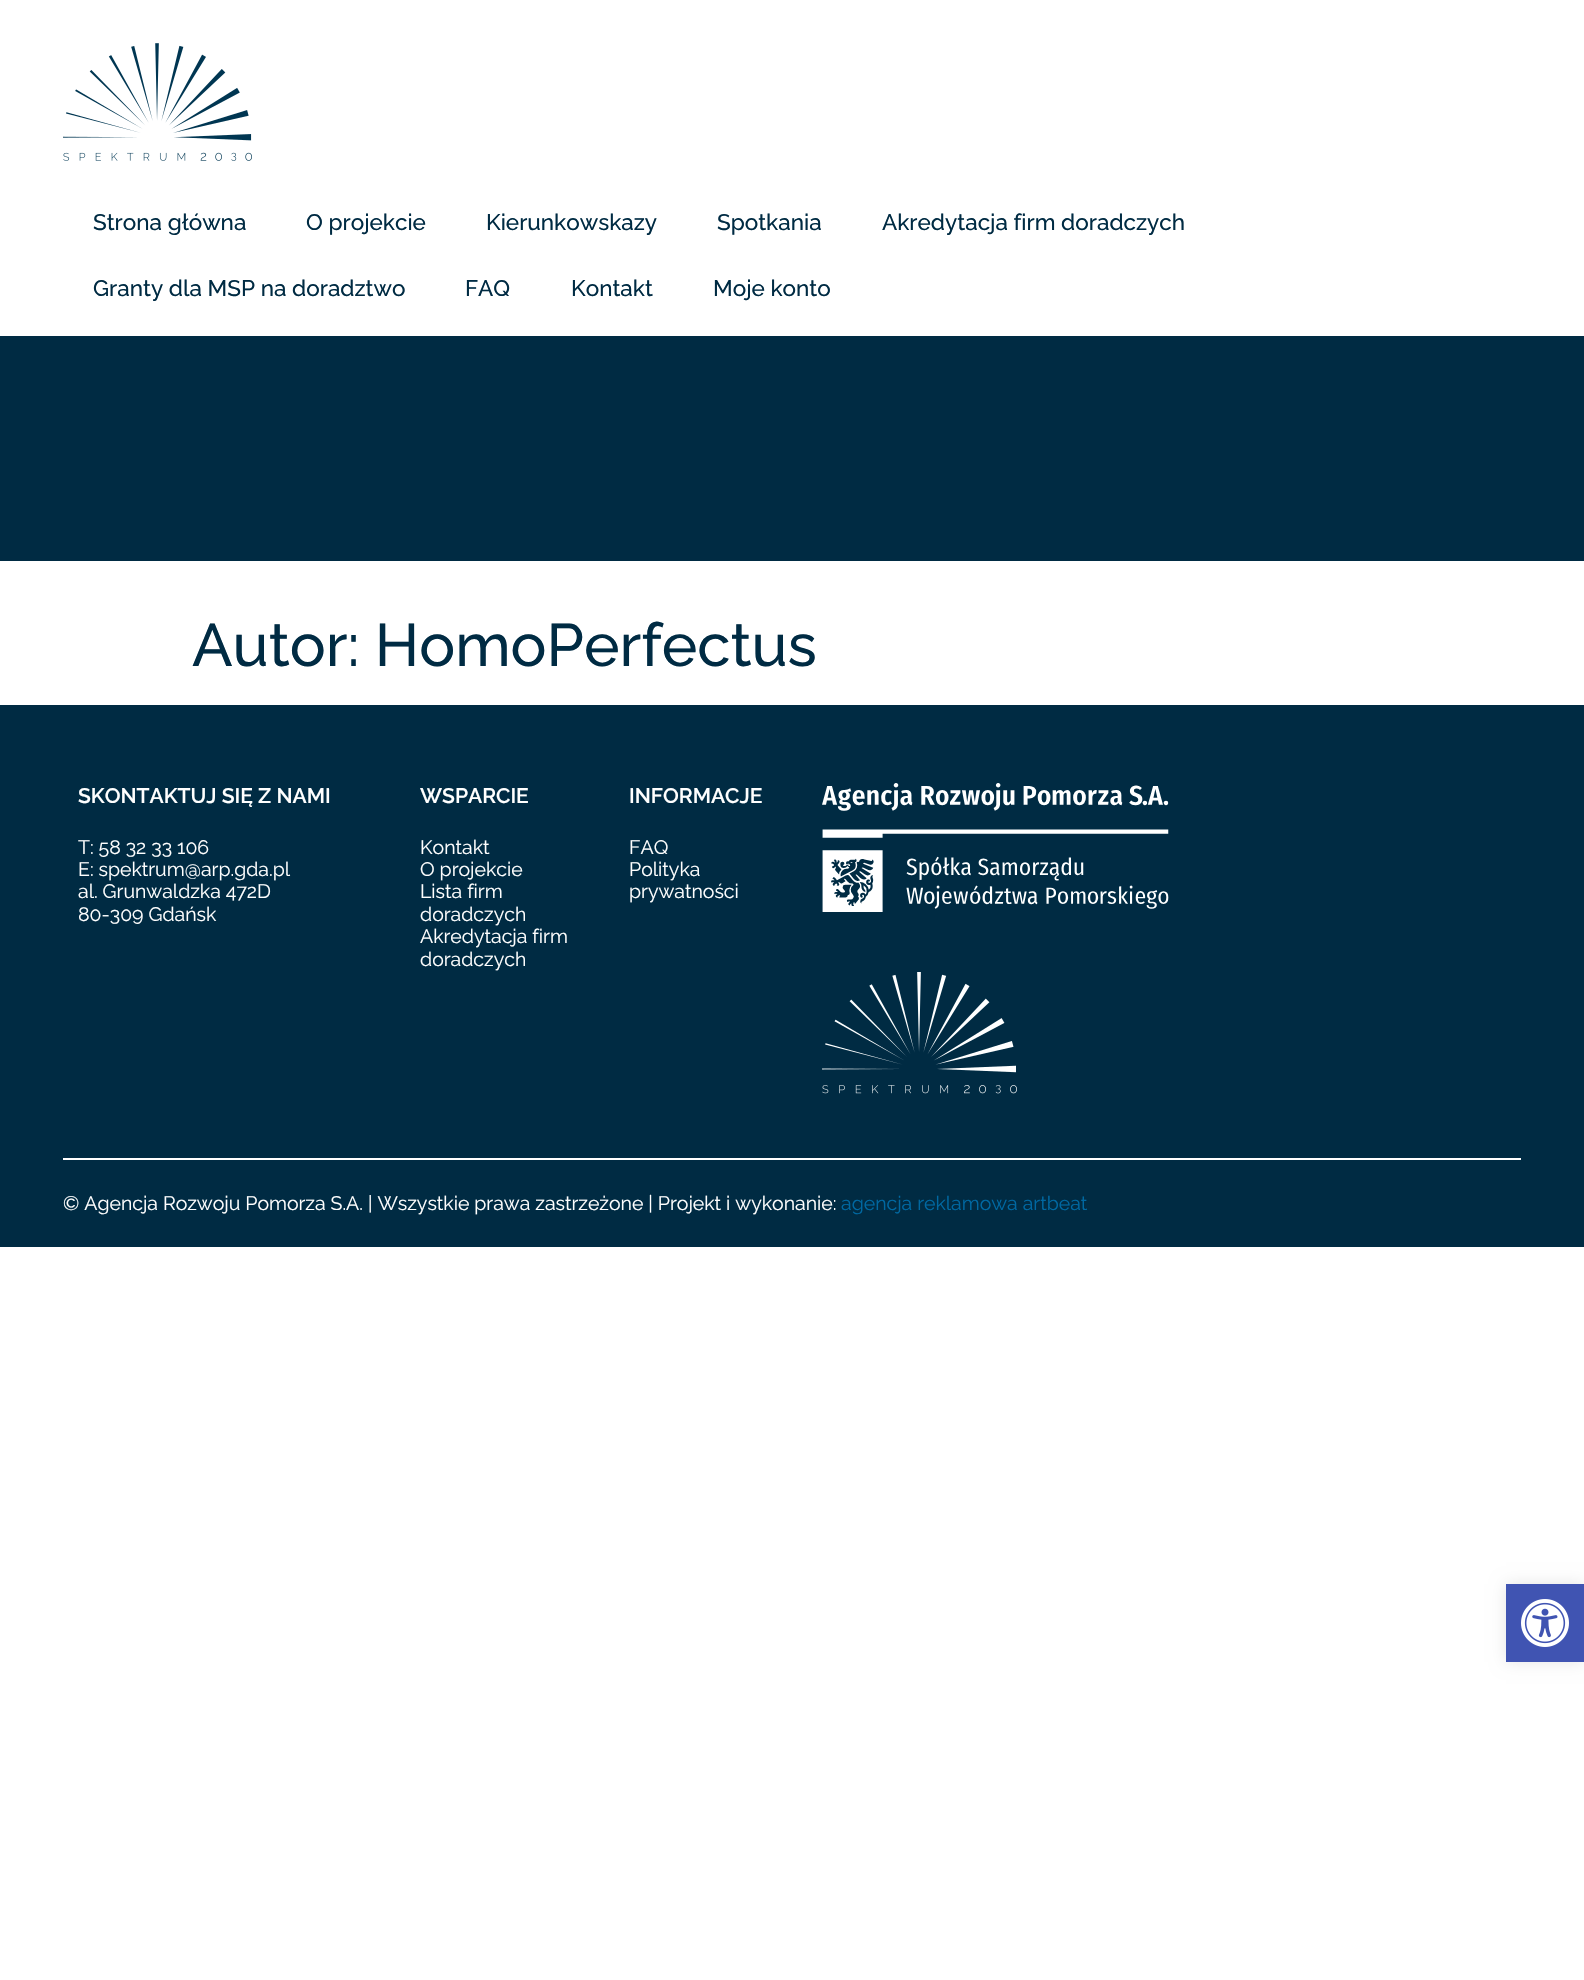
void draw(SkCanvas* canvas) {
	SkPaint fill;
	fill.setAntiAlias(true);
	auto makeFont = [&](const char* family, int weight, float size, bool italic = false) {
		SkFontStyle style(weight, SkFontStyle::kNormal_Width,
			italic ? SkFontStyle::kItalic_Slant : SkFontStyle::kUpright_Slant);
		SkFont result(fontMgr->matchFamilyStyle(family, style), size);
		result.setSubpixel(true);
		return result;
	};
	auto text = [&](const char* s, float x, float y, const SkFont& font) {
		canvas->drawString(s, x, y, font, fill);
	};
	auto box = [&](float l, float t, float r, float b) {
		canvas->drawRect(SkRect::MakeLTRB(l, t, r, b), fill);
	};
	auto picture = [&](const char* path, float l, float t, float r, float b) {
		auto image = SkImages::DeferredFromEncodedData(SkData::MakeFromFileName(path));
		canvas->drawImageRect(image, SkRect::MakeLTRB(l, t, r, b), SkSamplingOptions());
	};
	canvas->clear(0xFFFFFFFF);
	picture("image0.png", 63, 43, 252, 161);
	fill.setColor(0xFF002B43);
	box(0, 336, 1584, 561);
	box(0, 705, 1584, 1247);
	picture("image1.png", 822, 783, 1169, 912);
	picture("image2.png", 822, 972, 1017, 1094);
	fill.setColor(0xFFFFFFFF);
	box(63, 1158, 1521, 1160);
	fill.setColor(0x1A000000);
	fill.setMaskFilter(SkMaskFilter::MakeBlur(kNormal_SkBlurStyle, 7.5f));
	canvas->drawRect(SkRect::MakeLTRB(1506, 1584, 1584, 1662), fill);
	fill.setMaskFilter(nullptr);
	fill.setColor(0xFF4054B2);
	box(1506, 1584, 1584, 1662);
	picture("image3.png", 1521, 1599, 1569, 1647);
	auto font1 = makeFont("Raleway", 500, 22.5f);
	fill.setColor(0xFF002B43);
	text("Strona główna", 93, 230, font1);
	text("O projekcie", 306, 230, font1);
	text("Kierunkowskazy", 486, 230, font1);
	text("Spotkania", 717, 230, font1);
	text("Akredytacja firm doradczych", 882, 230, font1);
	text("Granty dla MSP na doradztwo", 93, 296, font1);
	text("FAQ", 465, 296, font1);
	text("Kontakt", 571, 296, font1);
	text("Moje konto", 713, 296, font1);
	auto font2 = makeFont("Raleway", 500, 60);
	text("Autor: HomoPerfectus", 192, 666, font2);
	auto font3 = makeFont("Raleway", 600, 21);
	fill.setColor(0xFFFFFFFF);
	text("SKONTAKTUJ SIĘ Z NAMI", 78, 803, font3);
	auto font4 = makeFont("Raleway", 400, 19.5f);
	text("T: 58 32 33 106", 78, 854, font4);
	text("E: spektrum@arp.gda.pl", 78, 876, font4);
	text("al. Grunwaldzka 472D", 78, 898, font4);
	text("80-309 Gdańsk", 78, 921, font4);
	text("WSPARCIE", 420, 803, font3);
	text("Kontakt", 420, 854, font4);
	text("O projekcie", 420, 876, font4);
	text("Lista firm", 420, 898, font4);
	text("doradczych", 420, 921, font4);
	text("Akredytacja firm", 420, 943, font4);
	text("doradczych", 420, 966, font4);
	text("INFORMACJE", 629, 803, font3);
	text("FAQ", 629, 854, font4);
	text("Polityka", 629, 876, font4);
	text("prywatności", 629, 898, font4);
	text("© Agencja Rozwoju Pomorza S.A. | Wszystkie prawa zastrzeżone | Projekt i wykonanie:", 63, 1210, font4);
	fill.setColor(0xFF0068A2);
	text("agencja reklamowa artbeat", 841, 1210, font4);
}
